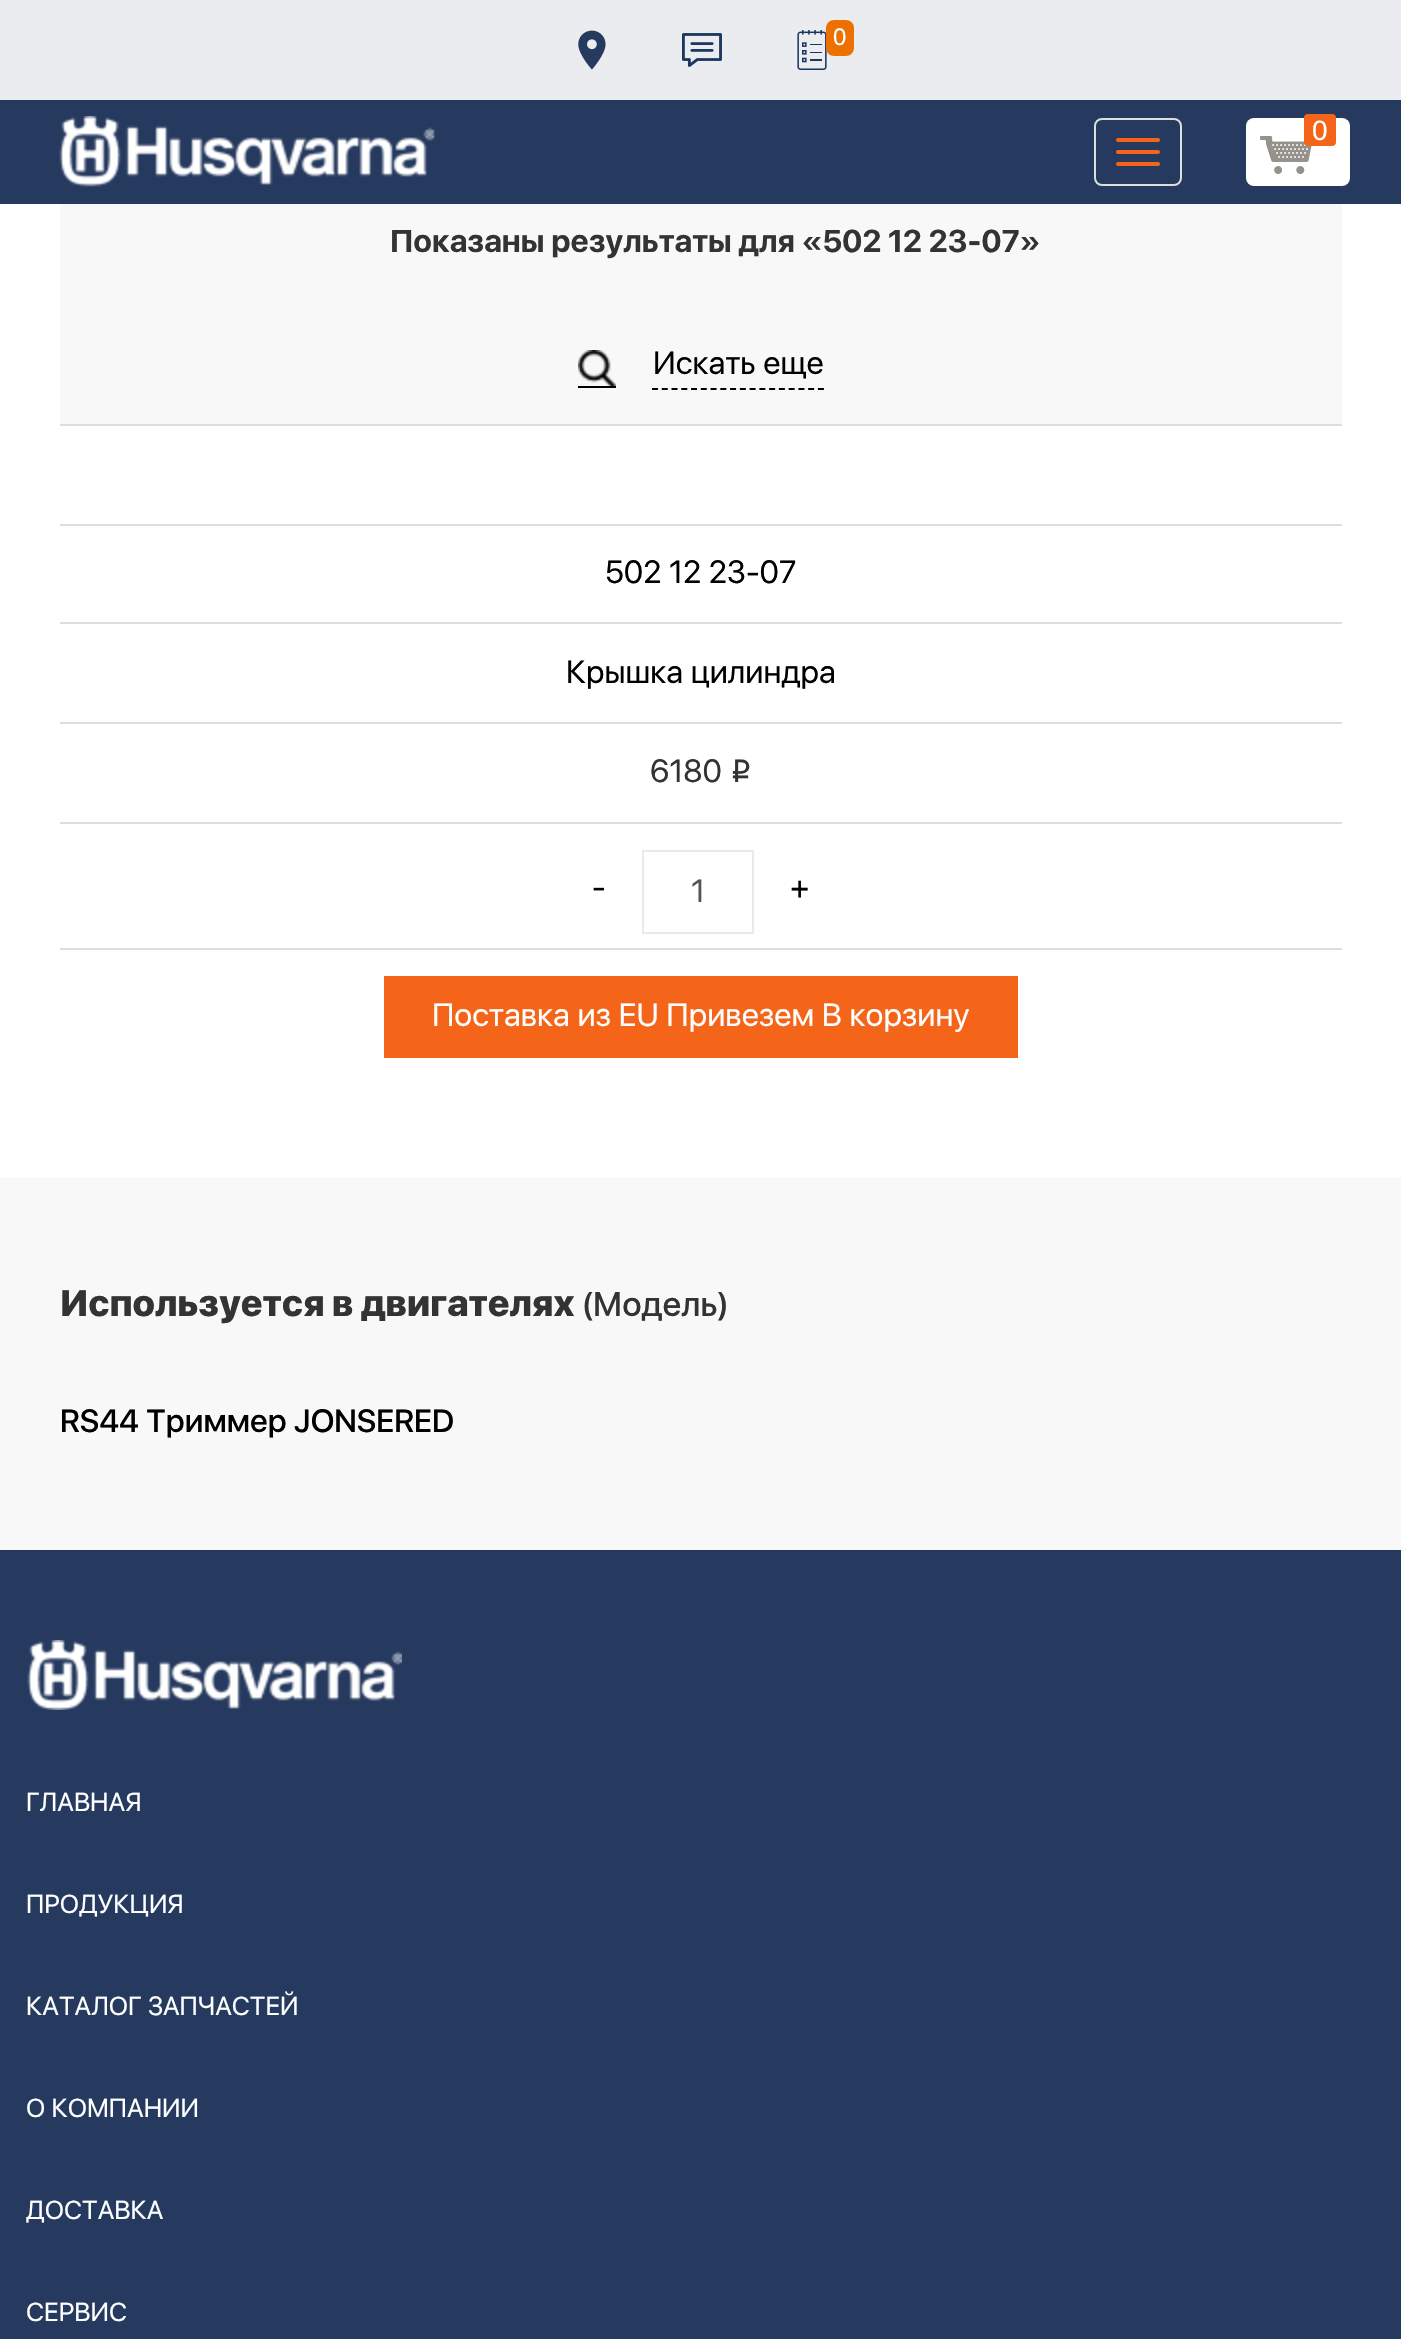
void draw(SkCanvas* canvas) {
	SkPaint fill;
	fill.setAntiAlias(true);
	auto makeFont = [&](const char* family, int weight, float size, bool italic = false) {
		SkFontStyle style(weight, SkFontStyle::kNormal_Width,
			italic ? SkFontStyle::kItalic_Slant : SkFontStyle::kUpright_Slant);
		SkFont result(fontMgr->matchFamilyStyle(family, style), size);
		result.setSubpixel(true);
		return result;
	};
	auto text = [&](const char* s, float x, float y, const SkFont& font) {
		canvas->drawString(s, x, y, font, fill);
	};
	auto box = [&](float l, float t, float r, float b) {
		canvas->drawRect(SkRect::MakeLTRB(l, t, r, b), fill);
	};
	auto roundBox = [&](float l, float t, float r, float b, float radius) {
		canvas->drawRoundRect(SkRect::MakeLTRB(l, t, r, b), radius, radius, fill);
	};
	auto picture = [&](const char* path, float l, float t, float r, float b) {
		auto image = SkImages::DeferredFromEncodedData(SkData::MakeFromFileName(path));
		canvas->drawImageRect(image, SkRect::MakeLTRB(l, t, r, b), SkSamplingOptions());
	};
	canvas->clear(0xFFFFFFFF);
	fill.setColor(0xFFEAECF0);
	box(0, 0, 1401, 100);
	picture("image0.png", 578, 30, 606, 70);
	picture("image1.png", 682, 33, 722, 67);
	picture("image2.png", 797, 30, 827, 70);
	fill.setColor(0xFFED7102);
	roundBox(826, 20, 854, 56, 8);
	fill.setColor(0xFF263A5F);
	box(0, 100, 1401, 204);
	picture("image3.png", 59, 116, 435, 187);
	fill.setStyle(SkPaint::kStroke_Style);
	fill.setStrokeWidth(2);
	fill.setColor(0xFFDDDDDD);
	canvas->drawRoundRect(SkRect::MakeLTRB(1095, 119, 1181, 185), 7, 7, fill);
	fill.setStyle(SkPaint::kFill_Style);
	fill.setColor(0xFFF4651A);
	roundBox(1116, 138, 1160, 142, 2);
	roundBox(1116, 150, 1160, 154, 2);
	roundBox(1116, 162, 1160, 166, 2);
	fill.setColor(0xFFFFFFFF);
	roundBox(1246, 118, 1350, 186, 8);
	picture("image4.png", 1260, 136, 1312, 174);
	fill.setColor(0xFFF4651A);
	roundBox(1304, 114, 1336, 146, 4);
	fill.setColor(0xFFF8F8F8);
	box(60, 204, 1342, 424);
	picture("image5.png", 578, 350, 616, 386);
	fill.setColor(0xFF000000);
	box(578, 386, 616, 388);
	fill.setStyle(SkPaint::kStroke_Style);
	fill.setPathEffect(SkDashPathEffect::Make({{6, 3.76f}}, 0));
	canvas->drawPath(SkPathBuilder().moveTo(652, 389).lineTo(824, 389).detach(), fill);
	fill.setPathEffect(nullptr);
	fill.setStyle(SkPaint::kFill_Style);
	fill.setColor(0xFFDDDDDD);
	box(60, 424, 1342, 426);
	box(60, 524, 1342, 526);
	box(60, 622, 1342, 624);
	box(60, 722, 1342, 724);
	box(60, 822, 1342, 824);
	fill.setStyle(SkPaint::kStroke_Style);
	fill.setColor(0xFFEAEAEA);
	canvas->drawRect(SkRect::MakeLTRB(643, 851, 753, 933), fill);
	fill.setStyle(SkPaint::kFill_Style);
	fill.setColor(0xFFDDDDDD);
	box(60, 948, 1342, 950);
	fill.setColor(0xFFF4651A);
	box(384, 976, 1018, 1058);
	fill.setColor(0xFFF8F8F8);
	box(0, 1178, 1401, 1550);
	fill.setColor(0xFF263A5F);
	box(0, 1550, 1401, 2339);
	picture("image6.png", 27, 1640, 402, 1710);
	auto font1 = makeFont("Liberation Sans", 400, 24);
	fill.setColor(0xFFFFFFFF);
	text("0", 833, 45, font1);
	auto font2 = makeFont("Liberation Sans", 400, 28);
	text("0", 1312, 140, font2);
	auto font3 = makeFont("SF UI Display", 700, 32);
	fill.setColor(0xFF333333);
	text("Показаны результаты для «502 12 23-07»", 390, 252, font3);
	auto font4 = makeFont("SF UI Display", 400, 32);
	fill.setColor(0xFF000000);
	text("Искать еще", 653, 374, font4);
	text("502 12 23-07", 605, 583, font4);
	text("Крышка цилиндра", 566, 683, font4);
	fill.setColor(0xFF333333);
	text("6180", 650, 782, font4);
	auto font5 = makeFont("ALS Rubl", 400, 32);
	text("i", 730, 782, font5);
	fill.setColor(0xFF000000);
	text("-", 592, 898, font4);
	fill.setColor(0xFF555555);
	text("1", 691, 902, font4);
	fill.setColor(0xFF000000);
	text("+", 790, 898, font4);
	fill.setColor(0xFFFFFFFF);
	text("Поставка из EU Привезем В корзину", 432, 1026, font4);
	auto font6 = makeFont("SF UI Display", 900, 38);
	fill.setColor(0xFF333333);
	text("Используется в двигателях", 60, 1316, font6);
	auto font7 = makeFont("SF UI Display", 500, 34);
	text("(Модель)", 582, 1316, font7);
	auto font8 = makeFont("SF UI Display", 500, 32);
	fill.setColor(0xFF000000);
	text("RS44 Триммер JONSERED", 60, 1432, font8);
	auto font9 = makeFont("SF UI Display", 400, 26);
	fill.setColor(0xFFFFFFFF);
	text("ГЛАВНАЯ", 26, 1811, font9);
	text("ПРОДУКЦИЯ", 26, 1913, font9);
	text("КАТАЛОГ ЗАПЧАСТЕЙ", 26, 2015, font9);
	text("О КОМПАНИИ", 26, 2117, font9);
	text("ДОСТАВКА", 26, 2219, font9);
	text("СЕРВИС", 26, 2321, font9);
}
